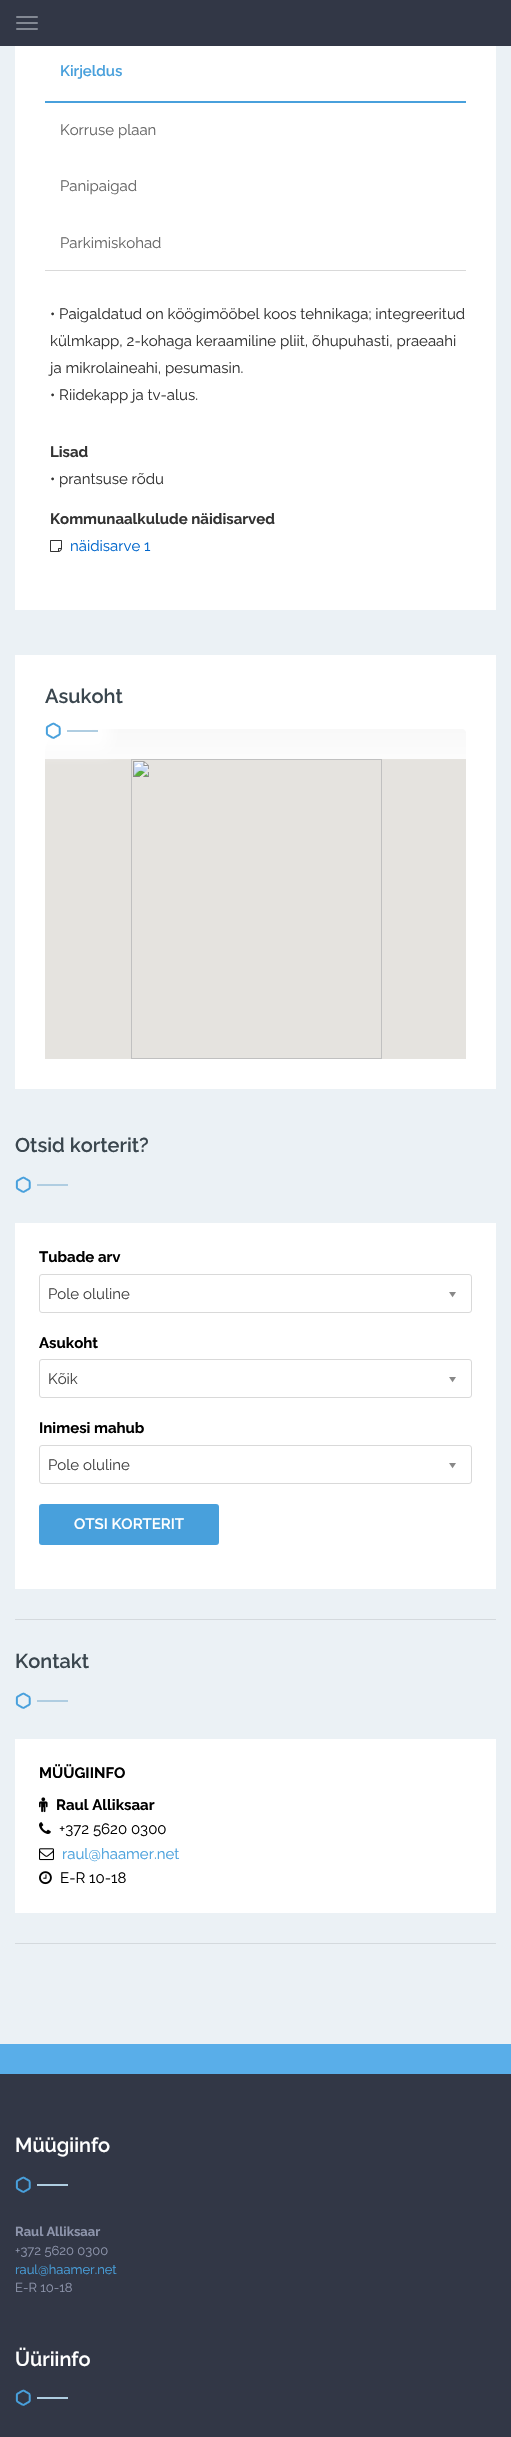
void draw(SkCanvas* canvas) {
	SkPaint fill;
	fill.setAntiAlias(true);
	auto makeFont = [&](const char* family, int weight, float size, bool italic = false) {
		SkFontStyle style(weight, SkFontStyle::kNormal_Width,
			italic ? SkFontStyle::kItalic_Slant : SkFontStyle::kUpright_Slant);
		SkFont result(fontMgr->matchFamilyStyle(family, style), size);
		result.setSubpixel(true);
		return result;
	};
	auto text = [&](const char* s, float x, float y, const SkFont& font) {
		canvas->drawString(s, x, y, font, fill);
	};
	auto box = [&](float l, float t, float r, float b) {
		canvas->drawRect(SkRect::MakeLTRB(l, t, r, b), fill);
	};
	auto roundBox = [&](float l, float t, float r, float b, float radius) {
		canvas->drawRoundRect(SkRect::MakeLTRB(l, t, r, b), radius, radius, fill);
	};
	auto picture = [&](const char* path, float l, float t, float r, float b) {
		auto image = SkImages::DeferredFromEncodedData(SkData::MakeFromFileName(path));
		canvas->drawImageRect(image, SkRect::MakeLTRB(l, t, r, b), SkSamplingOptions());
	};
	canvas->clear(0xFFEBF1F5);
	fill.setColor(0xFFFFFFFF);
	box(15, 46, 496, 610);
	{
		const SkColor colors[] = {0xFFF8F8F8, 0xFFFFFFFF, 0xFFFFFFFF};
		const float stops[] = {0, 0.72f, 1};
		const SkPoint ends[] = {{256, -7}, {256, 63}};
		fill.setShader(SkGradientShader::MakeLinear(ends, colors, stops, 3, SkTileMode::kClamp));
		fill.setAlpha(255);
	}
	canvas->drawPath(SkPathBuilder().moveTo(70, -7).lineTo(462, -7).cubicTo(464, -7, 466, -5, 466, -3).lineTo(466, 59).cubicTo(466, 61, 464, 63, 462, 63).lineTo(49, 63).cubicTo(47, 63, 45, 61, 45, 59).lineTo(45, 18).cubicTo(45, 4, 56, -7, 70, -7).close().detach(), fill);
	fill.setShader(nullptr);
	fill.setColor(0xFF323746);
	box(0, 0, 511, 46);
	fill.setColor(0xFF838893);
	roundBox(16, 16, 38, 18, 1);
	roundBox(16, 22, 38, 24, 1);
	roundBox(16, 28, 38, 30, 1);
	fill.setColor(0xFFD9D9D9);
	box(45, 270, 466, 271);
	fill.setColor(0xFF48A0DC);
	box(45, 101, 466, 103);
	picture("image0.png", 50, 540, 62, 552);
	fill.setColor(0xFFFFFFFF);
	box(15, 655, 496, 1089);
	{
		const SkColor colors[] = {0xFFF8F8F8, 0xFFFFFFFF, 0xFFFFFFFF};
		const float stops[] = {0, 0.72f, 1};
		const SkPoint ends[] = {{256, 729}, {256, 799}};
		fill.setShader(SkGradientShader::MakeLinear(ends, colors, stops, 3, SkTileMode::kClamp));
		fill.setAlpha(255);
	}
	canvas->drawPath(SkPathBuilder().moveTo(70, 729).lineTo(462, 729).cubicTo(464, 729, 466, 731, 466, 733).lineTo(466, 795).cubicTo(466, 797, 464, 799, 462, 799).lineTo(49, 799).cubicTo(47, 799, 45, 797, 45, 795).lineTo(45, 754).cubicTo(45, 740, 56, 729, 70, 729).close().detach(), fill);
	picture("image2.png", 45, 759, 466, 1059);
	fill.setShader(nullptr);
	fill.setColor(0xFFFFFFFF);
	fill.setMaskFilter(SkMaskFilter::MakeBlur(kNormal_SkBlurStyle, 7.5f));
	canvas->drawRect(SkRect::MakeLTRB(33, 710, 110, 751), fill);
	fill.setMaskFilter(nullptr);
	picture("image1.png", 45, 722, 98, 739);
	fill.setColor(0xFFD4D9DD);
	box(15, 1619, 496, 1620);
	picture("image3.png", 15, 1176, 68, 1193);
	fill.setColor(0xFFFFFFFF);
	box(15, 1223, 496, 1589);
	fill.setStyle(SkPaint::kStroke_Style);
	fill.setStrokeWidth(1);
	fill.setColor(0xFFD9D9D9);
	canvas->drawRoundRect(SkRect::MakeLTRB(39.5f, 1274.5f, 471.5f, 1312.5f), 2.5f, 2.5f, fill);
	picture("image4.png", 449, 1292, 456, 1298);
	canvas->drawRoundRect(SkRect::MakeLTRB(39.5f, 1359.5f, 471.5f, 1397.5f), 2.5f, 2.5f, fill);
	picture("image4.png", 449, 1377, 456, 1383);
	canvas->drawRoundRect(SkRect::MakeLTRB(39.5f, 1445.5f, 471.5f, 1483.5f), 2.5f, 2.5f, fill);
	picture("image4.png", 449, 1463, 456, 1469);
	fill.setStyle(SkPaint::kFill_Style);
	fill.setColor(0xFF48A0DC);
	roundBox(39, 1504, 219, 1545, 3);
	fill.setColor(0xFFD4D9DD);
	box(15, 1943, 496, 1944);
	picture("image3.png", 15, 1692, 68, 1709);
	fill.setColor(0xFFFFFFFF);
	box(15, 1739, 496, 1913);
	picture("image5.png", 39, 1797, 48, 1813);
	picture("image6.png", 39, 1822, 51, 1834);
	picture("image7.png", 39, 1848, 54, 1861);
	picture("image8.png", 39, 1871, 52, 1885);
	fill.setColor(0xFF59AEE9);
	box(0, 2044, 511, 2074);
	fill.setColor(0xFF323746);
	box(0, 2074, 511, 2437);
	picture("image9.png", 15, 2176, 68, 2193);
	picture("image9.png", 15, 2389, 68, 2406);
	auto font1 = makeFont("Raleway", 600, 15);
	fill.setColor(0xFF48A0DC);
	text("Kirjeldus", 60, 76, font1);
	auto font2 = makeFont("Raleway", 400, 15);
	fill.setColor(0xFF666666);
	text("Korruse plaan", 60, 135, font2);
	text("Panipaigad", 60, 191, font2);
	text("Parkimiskohad", 60, 248, font2);
	fill.setColor(0xFF333333);
	text("• Paigaldatud on köögimööbel koos tehnikaga; integreeritud", 50, 319, font2);
	text("külmkapp, 2-kohaga keraamiline pliit, õhupuhasti, praeaahi", 50, 346, font2);
	text("ja mikrolaineahi, pesumasin.", 50, 373, font2);
	text("• Riidekapp ja tv-alus.", 50, 400, font2);
	auto font3 = makeFont("Raleway", 700, 15);
	text("Lisad", 50, 457, font3);
	text("• prantsuse rõdu", 50, 484, font2);
	text("Kommunaalkulude näidisarved", 50, 524, font3);
	fill.setColor(0xFF0066CC);
	text("näidisarve 1", 70, 551, font2);
	auto font4 = makeFont("Raleway", 600, 20);
	fill.setColor(0xFF3A464E);
	text("Asukoht", 45, 703, font4);
	text("Otsid korterit?", 15, 1152, font4);
	fill.setColor(0xFF000000);
	text("Tubade arv", 39, 1262, font3);
	fill.setColor(0xFF444444);
	text("Pole oluline", 48, 1299, font2);
	fill.setColor(0xFF000000);
	text("Asukoht", 39, 1348, font3);
	fill.setColor(0xFF444444);
	text("Kõik", 48, 1384, font2);
	fill.setColor(0xFF000000);
	text("Inimesi mahub", 39, 1433, font3);
	fill.setColor(0xFF444444);
	text("Pole oluline", 48, 1470, font2);
	fill.setColor(0xFFFFFFFF);
	text("OTSI KORTERIT", 74, 1529, font1);
	fill.setColor(0xFF3A464E);
	text("Kontakt", 15, 1668, font4);
	fill.setColor(0xFF000000);
	text("MÜÜGIINFO", 39, 1778, font3);
	text("Raul Alliksaar", 56, 1810, font3);
	text("+372 5620 0300", 59, 1834, font2);
	fill.setColor(0xFF48A0DC);
	text("raul@haamer.net", 62, 1859, font2);
	fill.setColor(0xFF000000);
	text("E-R 10-18", 60, 1883, font2);
	fill.setColor(0xFFFFFFFF);
	text("Müügiinfo", 15, 2152, font4);
	auto font5 = makeFont("Raleway", 700, 13);
	fill.setColor(0xFF8E95AC);
	text("Raul Alliksaar", 15, 2236, font5);
	auto font6 = makeFont("Raleway", 400, 13);
	text("+372 5620 0300", 15, 2255, font6);
	fill.setColor(0xFF48A0DC);
	text("raul@haamer.net", 15, 2274, font6);
	fill.setColor(0xFF8E95AC);
	text("E-R 10-18", 15, 2292, font6);
	fill.setColor(0xFFFFFFFF);
	text("Üüriinfo", 15, 2366, font4);
}
